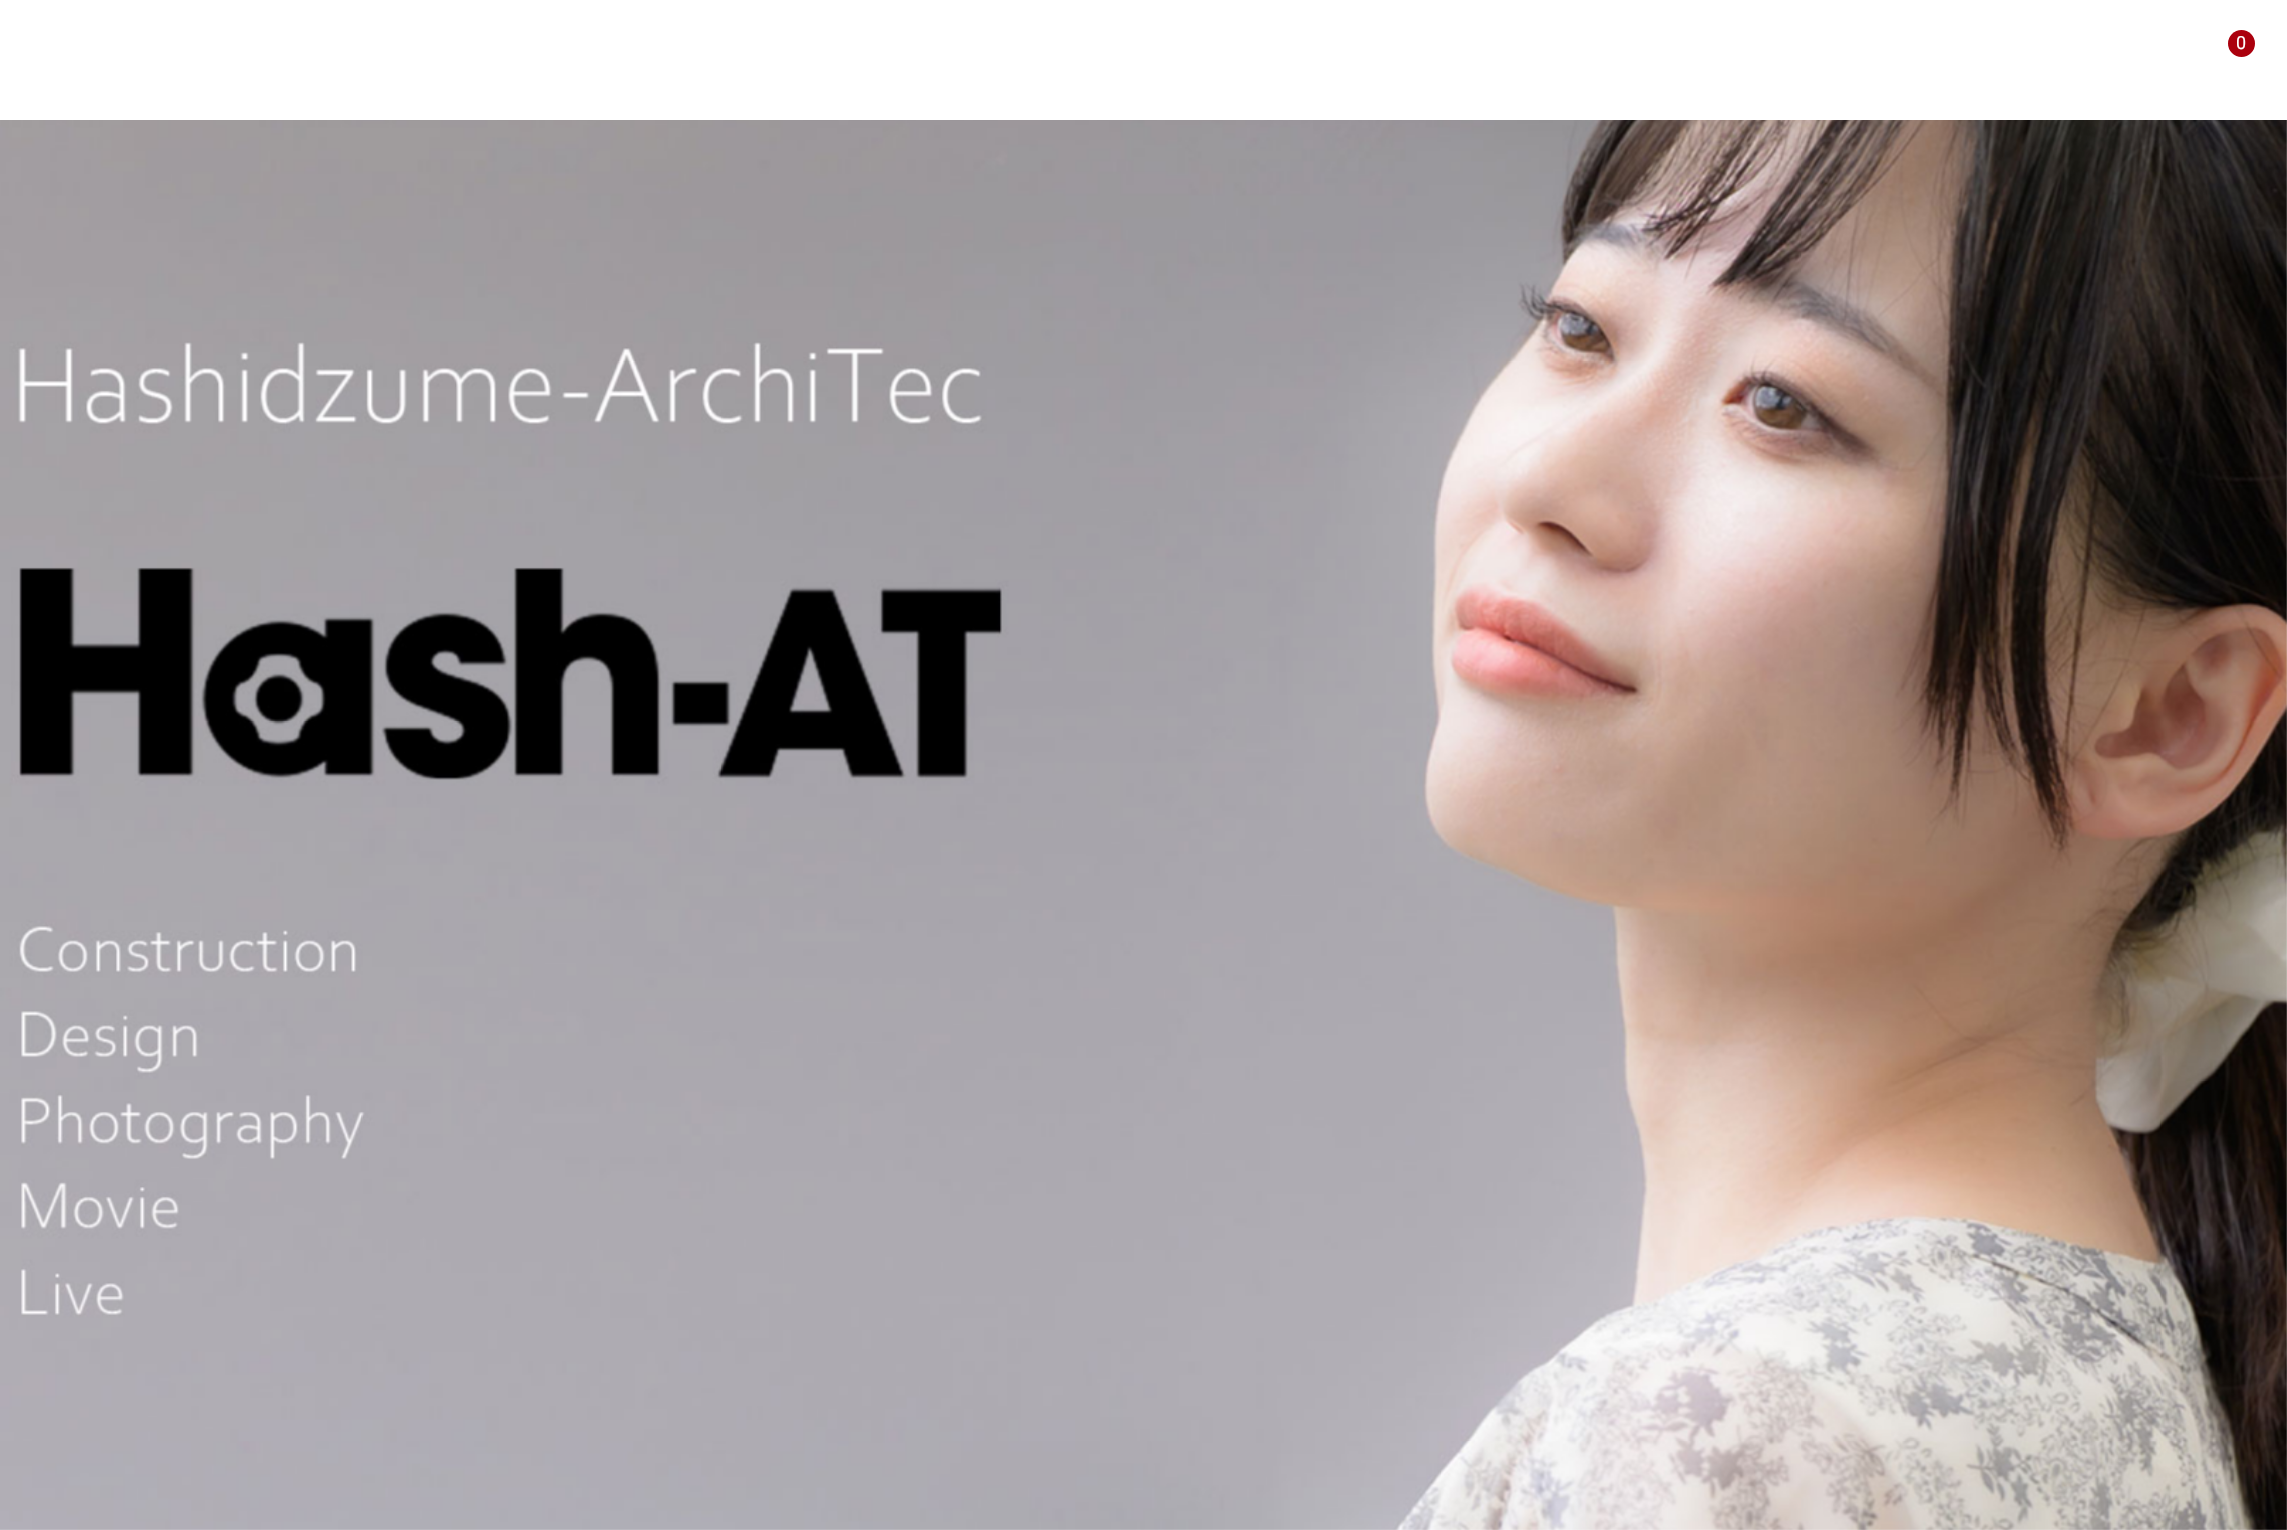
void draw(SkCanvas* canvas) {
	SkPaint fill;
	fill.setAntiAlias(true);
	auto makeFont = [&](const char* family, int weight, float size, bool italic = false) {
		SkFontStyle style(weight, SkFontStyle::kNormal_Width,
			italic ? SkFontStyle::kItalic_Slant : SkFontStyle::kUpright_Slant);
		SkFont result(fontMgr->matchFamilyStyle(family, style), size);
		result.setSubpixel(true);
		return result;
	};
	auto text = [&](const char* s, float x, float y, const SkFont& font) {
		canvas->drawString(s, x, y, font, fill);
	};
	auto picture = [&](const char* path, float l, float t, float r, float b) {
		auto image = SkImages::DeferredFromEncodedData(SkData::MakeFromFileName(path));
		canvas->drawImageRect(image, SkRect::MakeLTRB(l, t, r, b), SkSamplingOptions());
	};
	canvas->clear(0xFFFFFFFF);
	fill.setColor(0xFFAB000D);
	canvas->drawCircle(2241.5f, 43.5f, 13.5f, fill);
	picture("image0.png", 0, 120, 2287, 1530);
	auto font1 = makeFont("Roboto", 400, 18);
	fill.setColor(0xFFFFFFFF);
	text("0", 2236, 49, font1);
}
